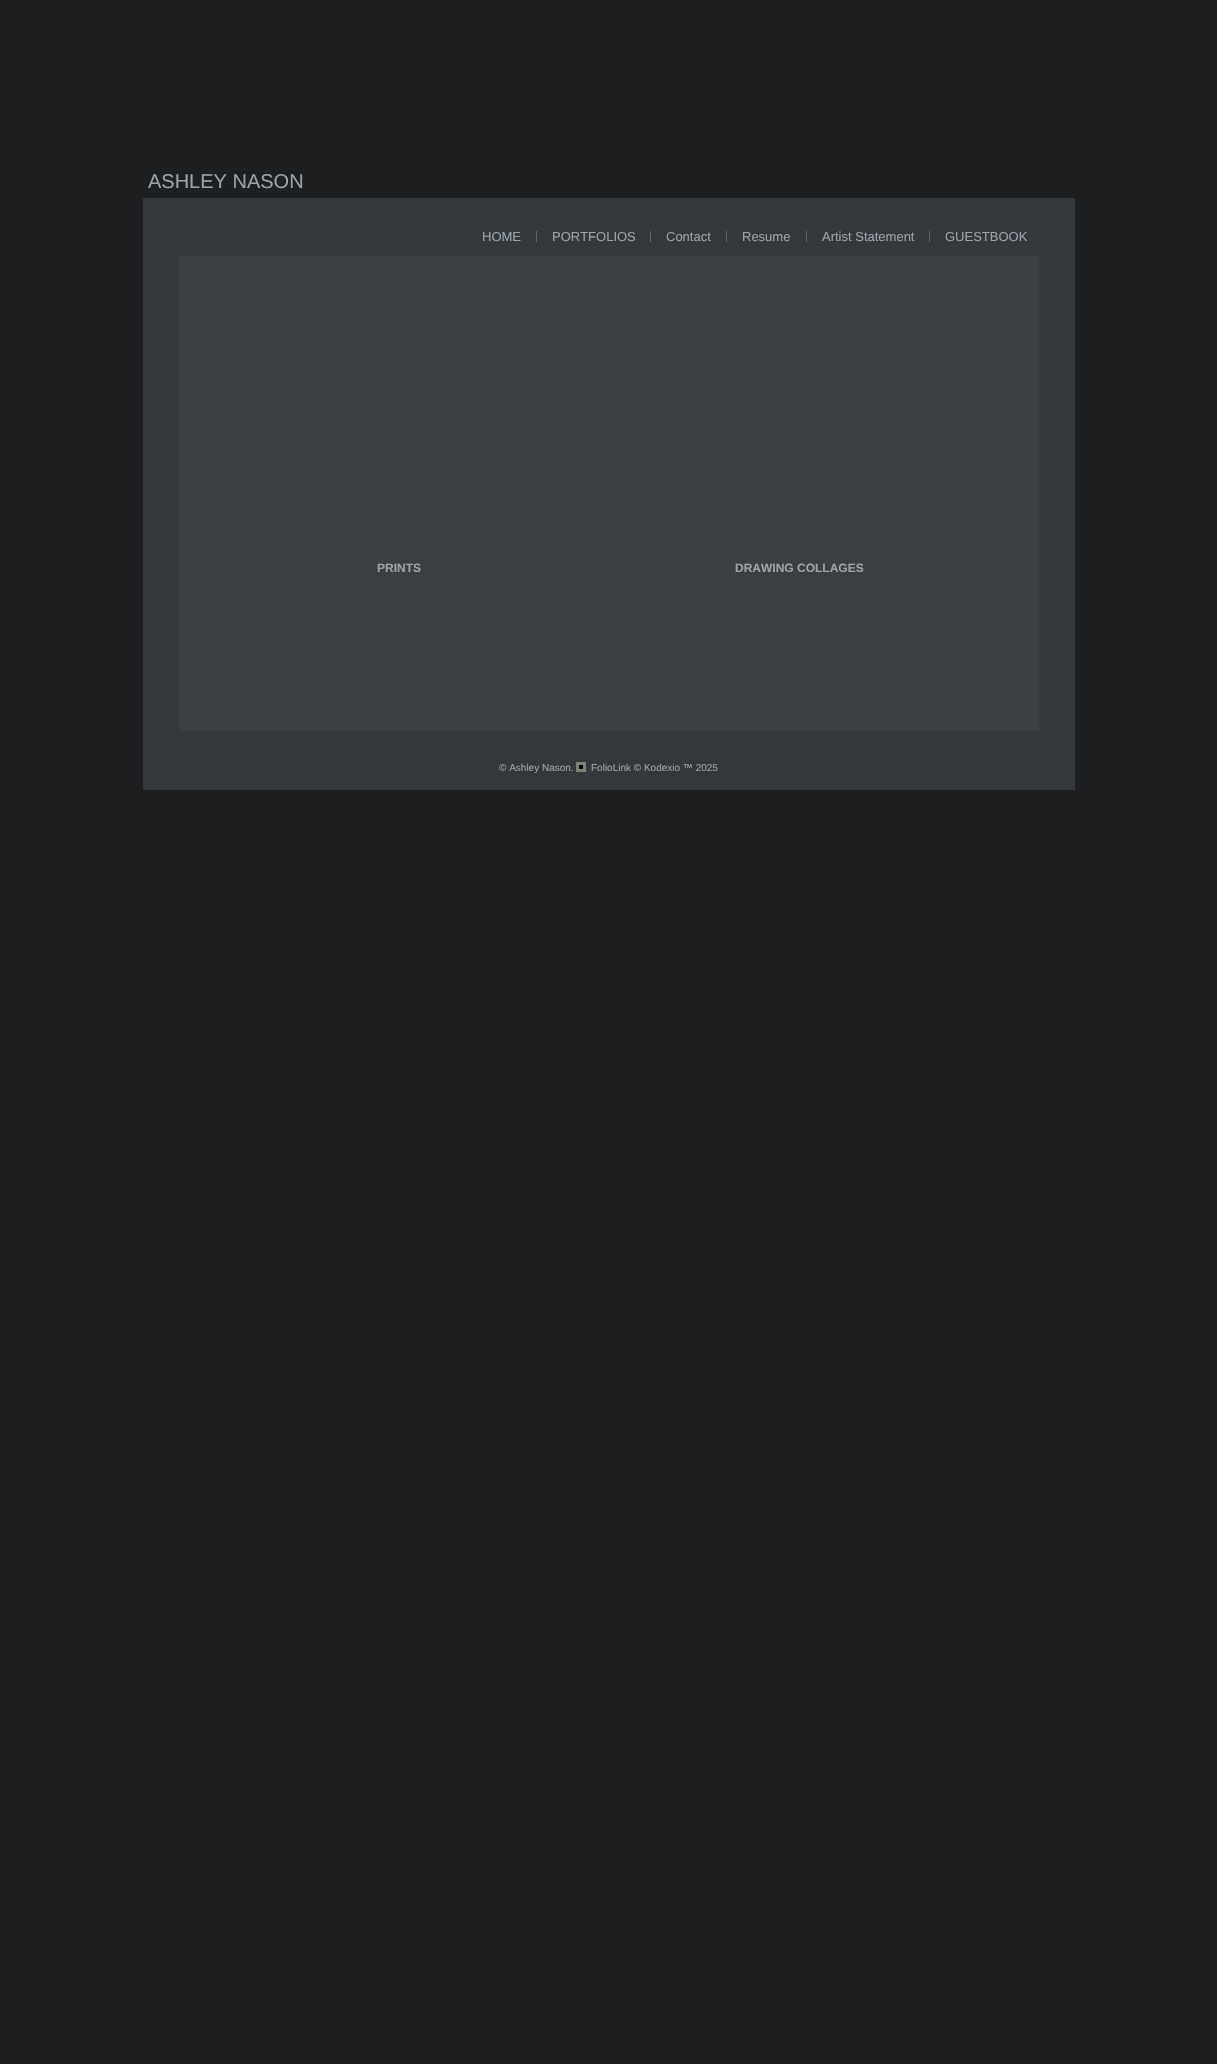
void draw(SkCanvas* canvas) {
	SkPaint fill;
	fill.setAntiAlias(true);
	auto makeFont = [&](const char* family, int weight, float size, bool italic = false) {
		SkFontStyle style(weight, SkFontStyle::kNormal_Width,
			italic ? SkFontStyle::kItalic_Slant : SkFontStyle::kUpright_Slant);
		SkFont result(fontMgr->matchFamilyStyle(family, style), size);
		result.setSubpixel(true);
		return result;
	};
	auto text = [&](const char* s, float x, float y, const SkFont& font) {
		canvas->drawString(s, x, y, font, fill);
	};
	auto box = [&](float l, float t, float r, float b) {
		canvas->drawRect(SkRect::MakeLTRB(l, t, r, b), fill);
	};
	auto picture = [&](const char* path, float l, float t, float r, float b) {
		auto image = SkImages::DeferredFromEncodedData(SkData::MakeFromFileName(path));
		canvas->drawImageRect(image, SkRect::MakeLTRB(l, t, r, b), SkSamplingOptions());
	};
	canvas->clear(0xFF1E1F21);
	fill.setColor(0xFF35383B);
	box(143, 198, 1075, 790);
	fill.setColor(0xFF5D6568);
	box(536, 231, 537, 242);
	box(650, 231, 651, 242);
	box(726, 231, 727, 242);
	box(806, 231, 807, 242);
	box(929, 231, 930, 242);
	fill.setColor(0xFF3C3F42);
	box(179, 256, 1039, 731);
	picture("image0.png", 576, 762, 586, 772);
	auto font1 = makeFont("Liberation Sans", 400, 20);
	fill.setColor(0xFF98A3AB);
	text("ASHLEY NASON", 148, 188, font1);
	auto font2 = makeFont("Liberation Sans", 400, 13);
	text("HOME", 482, 241, font2);
	text("PORTFOLIOS", 552, 241, font2);
	text("Contact", 666, 241, font2);
	text("Resume", 742, 241, font2);
	text("Artist Statement", 822, 241, font2);
	text("GUESTBOOK", 945, 241, font2);
	auto font3 = makeFont("Liberation Sans", 700, 12);
	text("PRINTS", 377, 572, font3);
	text("DRAWING COLLAGES", 735, 572, font3);
	auto font4 = makeFont("Liberation Sans", 400, 10);
	text("© Ashley Nason.", 499, 771, font4);
	text("FolioLink © Kodexio ™ 2025", 591, 771, font4);
}
